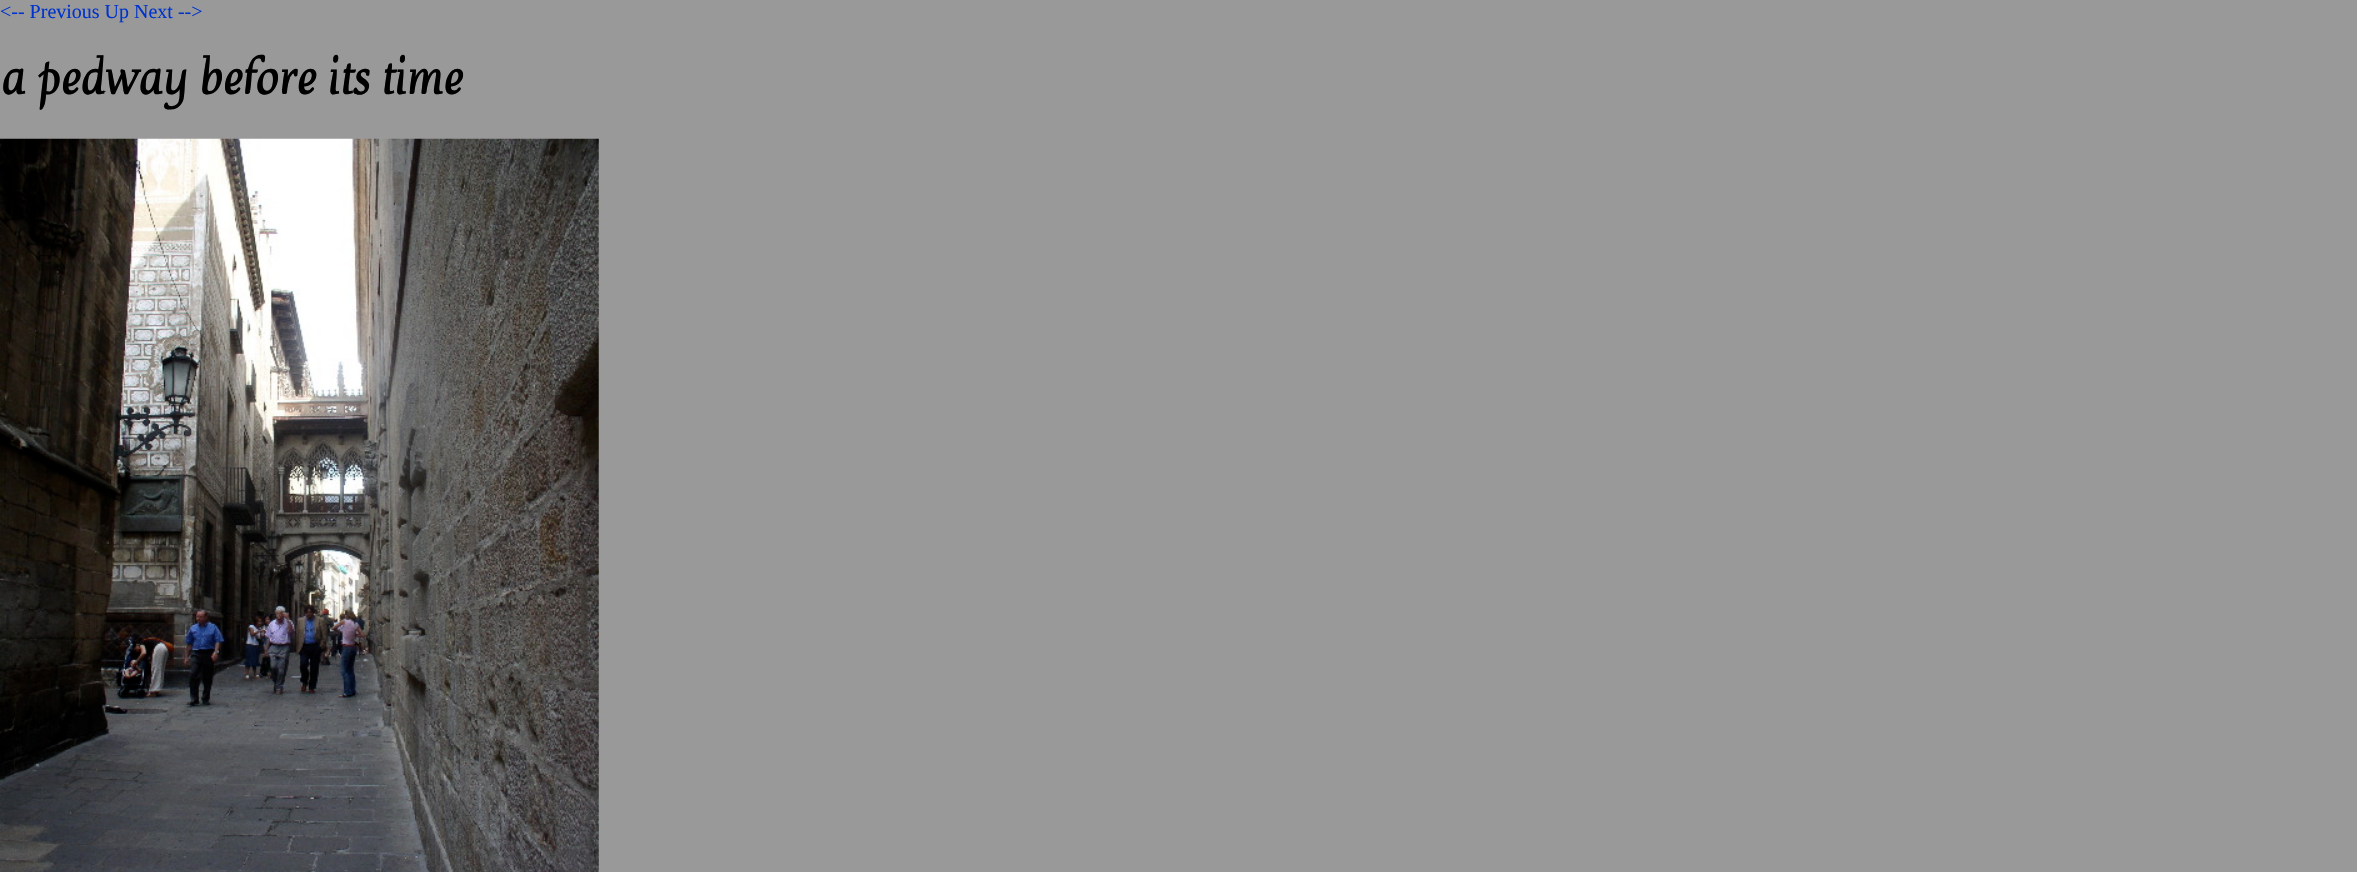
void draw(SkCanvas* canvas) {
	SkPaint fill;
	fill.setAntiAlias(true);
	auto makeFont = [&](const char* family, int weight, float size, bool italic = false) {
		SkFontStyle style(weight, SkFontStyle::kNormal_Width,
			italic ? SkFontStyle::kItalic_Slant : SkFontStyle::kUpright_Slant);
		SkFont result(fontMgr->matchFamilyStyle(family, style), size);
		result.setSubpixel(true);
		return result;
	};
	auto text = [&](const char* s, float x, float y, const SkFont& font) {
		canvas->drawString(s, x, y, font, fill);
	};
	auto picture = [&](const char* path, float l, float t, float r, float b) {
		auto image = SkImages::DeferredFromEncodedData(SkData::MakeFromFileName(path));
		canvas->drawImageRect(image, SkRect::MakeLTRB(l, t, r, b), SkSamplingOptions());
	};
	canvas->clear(0xFF999999);
	picture("image0.png", 0, 138, 599, 872);
	auto font1 = makeFont("Liberation Serif", 400, 20);
	fill.setColor(0xFF0033CC);
	text("<-- Previous Up Next -->", 0, 18, font1);
	auto font2 = makeFont("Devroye", 700, 40);
	fill.setColor(0xFF000000);
	text("a pedway before its time", 0, 94, font2);
}
